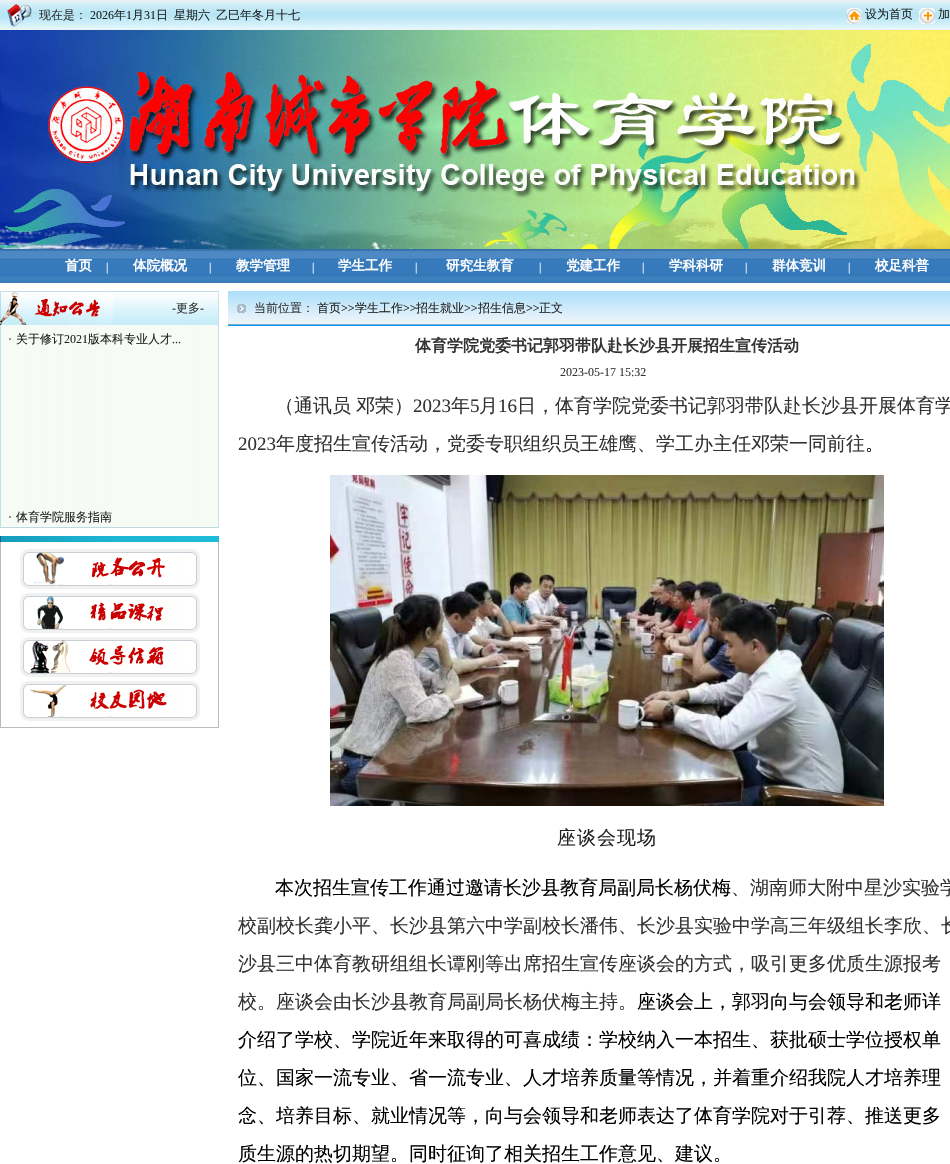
void draw(SkCanvas* canvas) {
	SkPaint fill;
	fill.setAntiAlias(true);
	auto makeFont = [&](const char* family, int weight, float size, bool italic = false) {
		SkFontStyle style(weight, SkFontStyle::kNormal_Width,
			italic ? SkFontStyle::kItalic_Slant : SkFontStyle::kUpright_Slant);
		SkFont result(fontMgr->matchFamilyStyle(family, style), size);
		result.setSubpixel(true);
		return result;
	};
	auto text = [&](const char* s, float x, float y, const SkFont& font) {
		canvas->drawString(s, x, y, font, fill);
	};
	auto spacedText = [&](const char* s, float x, float y, const SkFont& font, const SkPaint& ink, float letter, float word) {
		std::vector<SkGlyphID> glyphs(font.countText(s, strlen(s), SkTextEncoding::kUTF8));
		std::vector<float> xs(glyphs.size());
		font.textToGlyphs(s, strlen(s), SkTextEncoding::kUTF8, glyphs);
		font.getXPos(glyphs, xs, x);
		float extra = 0;
		for (size_t i = 0; i < glyphs.size(); i++) {
			xs[i] += extra;
			extra += letter + word * (glyphs[i] == font.unicharToGlyph(' '));
		}
		canvas->drawTextBlob(SkTextBlob::MakeFromPosHGlyphs(glyphs, xs, y, font), 0, 0, ink);
	};
	auto box = [&](float l, float t, float r, float b) {
		canvas->drawRect(SkRect::MakeLTRB(l, t, r, b), fill);
	};
	auto picture = [&](const char* path, float l, float t, float r, float b) {
		auto image = SkImages::DeferredFromEncodedData(SkData::MakeFromFileName(path));
		canvas->drawImageRect(image, SkRect::MakeLTRB(l, t, r, b), SkSamplingOptions());
	};
	canvas->clear(0xFFFFFFFF);
	picture("image0.png", 0, 0, 39, 30);
	picture("image1.png", 2, 0, 32, 27);
	picture("image2.png", 39, 0, 90, 30);
	picture("image3.png", 90, 0, 788, 30);
	picture("image4.png", 788, 0, 950, 30);
	picture("image5.png", 847, 8, 862, 24);
	picture("image6.png", 919, 8, 935, 24);
	picture("image7.png", 0, 30, 950, 249);
	picture("image8.png", 0, 249, 950, 283);
	picture("image9.png", 113, 291, 172, 325);
	picture("image10.png", 0, 291, 113, 325);
	picture("image11.png", 172, 291, 213, 325);
	picture("image12.png", 213, 291, 216, 325);
	picture("image13.png", 216, 291, 219, 325);
	picture("image14.png", 0, 325, 219, 527);
	fill.setColor(0xFFBDDADE);
	box(0, 527, 219, 528);
	picture("image15.png", 0, 536, 219, 542);
	picture("image16.png", 0, 542, 219, 727);
	picture("image17.png", 20, 549, 200, 589);
	picture("image18.png", 20, 593, 200, 633);
	picture("image19.png", 20, 637, 200, 677);
	picture("image20.png", 20, 681, 200, 721);
	fill.setColor(0xFFBBBBBB);
	box(0, 727, 219, 728);
	picture("image21.png", 228, 291, 254, 326);
	picture("image22.png", 237, 304, 246, 313);
	picture("image23.png", 254, 291, 928, 326);
	picture("image24.png", 928, 291, 950, 326);
	picture("image25.png", 330, 475, 884, 806);
	auto font1 = makeFont("WenQuanYi Zen Hei", 500, 12);
	fill.setColor(0xFF333333);
	text("现在是：", 39, 19, font1);
	auto font2 = makeFont("Liberation Serif", 400, 12);
	fill.setColor(0xFF222222);
	text("2026", 90, 19, font2);
	text("年", 114, 19, font1);
	text("1", 126, 19, font2);
	text("月", 132, 19, font1);
	text("31", 144, 19, font2);
	text("日", 156, 19, font1);
	text("星期六", 174, 19, font1);
	text("乙巳年冬月十七", 216, 19, font1);
	text("设为首页", 865, 18, font1);
	text("加", 938, 18, font1);
	auto font3 = makeFont("WenQuanYi Zen Hei", 700, 13.5f);
	fill.setColor(0xFFFFFFFF);
	text("首页", 65, 270, font3);
	text("|", 106, 271, font2);
	text("体院概况", 133, 270, font3);
	text("|", 209, 271, font2);
	text("教学管理", 236, 270, font3);
	text("|", 312, 271, font2);
	text("学生工作", 338, 270, font3);
	text("|", 415, 271, font2);
	text("研究生教育", 446, 270, font3);
	text("|", 539, 271, font2);
	text("党建工作", 566, 270, font3);
	text("|", 642, 271, font2);
	text("学科科研", 669, 270, font3);
	text("|", 745, 271, font2);
	text("群体竞训", 772, 270, font3);
	text("|", 848, 271, font2);
	text("校足科普", 875, 270, font3);
	fill.setColor(0xFF333333);
	text("-", 172, 312, font2);
	text("更多", 176, 312, font1);
	text("-", 200, 312, font2);
	fill.setColor(0xFF222222);
	text("·", 8, 343, font2);
	text("关于修订", 16, 343, font1);
	text("2021", 64, 343, font2);
	text("版本科专业人才", 88, 343, font1);
	text("...", 172, 343, font2);
	text("·", 8, 521, font2);
	text("体育学院服务指南", 16, 521, font1);
	fill.setColor(0xFF333333);
	text("当前位置：", 254, 312, font1);
	fill.setColor(0xFF222222);
	text("首页", 317, 312, font1);
	text(">>", 341, 312, font2);
	text("学生工作", 355, 312, font1);
	text(">>", 403, 312, font2);
	text("招生就业", 416, 312, font1);
	text(">>", 464, 312, font2);
	text("招生信息", 478, 312, font1);
	text(">>", 526, 312, font2);
	text("正文", 539, 312, font1);
	auto font4 = makeFont("WenQuanYi Zen Hei", 700, 16);
	fill.setColor(0xFF333333);
	text("体育学院党委书记郭羽带队赴长沙县开展招生宣传活动", 415, 351, font4);
	text("2023-05-17 15:32", 560, 376, font2);
	auto font5 = makeFont("WenQuanYi Zen Hei", 500, 19);
	text("（通讯员", 275, 412, font5);
	text("邓荣）", 356, 412, font5);
	auto font6 = makeFont("Liberation Serif", 400, 19);
	text("2023", 413, 412, font6);
	text("年", 451, 412, font5);
	text("5", 470, 412, font6);
	text("月", 479, 412, font5);
	text("16", 498, 412, font6);
	text("日，体育学院党委书记郭羽带队赴长沙县开展体育学", 517, 412, font5);
	text("2023", 238, 450, font6);
	text("年度招生宣传活动，党委专职组织员王雄鹰、学工办主任邓荣一同前往", 276, 450, font5);
	fill.setColor(0xFF000000);
	text("。", 865, 450, font5);
	fill.setColor(0xFF222222);
	spacedText("座谈会现场", 557, 844, font5, fill, 1, 0);
	fill.setColor(0xFF000000);
	text("本次招生宣传工作通过邀请长沙县教育局副局长杨伏梅", 275, 894, font5);
	fill.setColor(0xFF333333);
	text("、湖南师大附中星沙实验学", 731, 894, font5);
	text("校副校长龚小平、长沙县第六中学副校长潘伟、长沙县实验中学高三年级组长李欣、长", 238, 932, font5);
	text("沙县三中体育教研组组长谭刚等出席招生宣传座谈会的方式，吸引更多优质生源报考", 238, 970, font5);
	text("校。座谈会由长沙县教育局副局长杨伏梅主持。", 238, 1008, font5);
	fill.setColor(0xFF000000);
	text("座谈会上，郭羽向与会领导和老师详", 637, 1008, font5);
	text("介绍了学校、学院近年来取得的可喜成绩：学校纳入一本招生、获批硕士学位授权单", 238, 1046, font5);
	text("位、国家一流专业、省一流专业、人才培养质量等情况，并着重介绍我院人才培养理", 238, 1084, font5);
	text("念、培养目标、就业情况等，向与会领导和老师表达了体育学院对于引荐、推送更多", 238, 1122, font5);
	text("质生源的热切期望。同时征询了相关招生工作意见、建议。", 238, 1160, font5);
}
